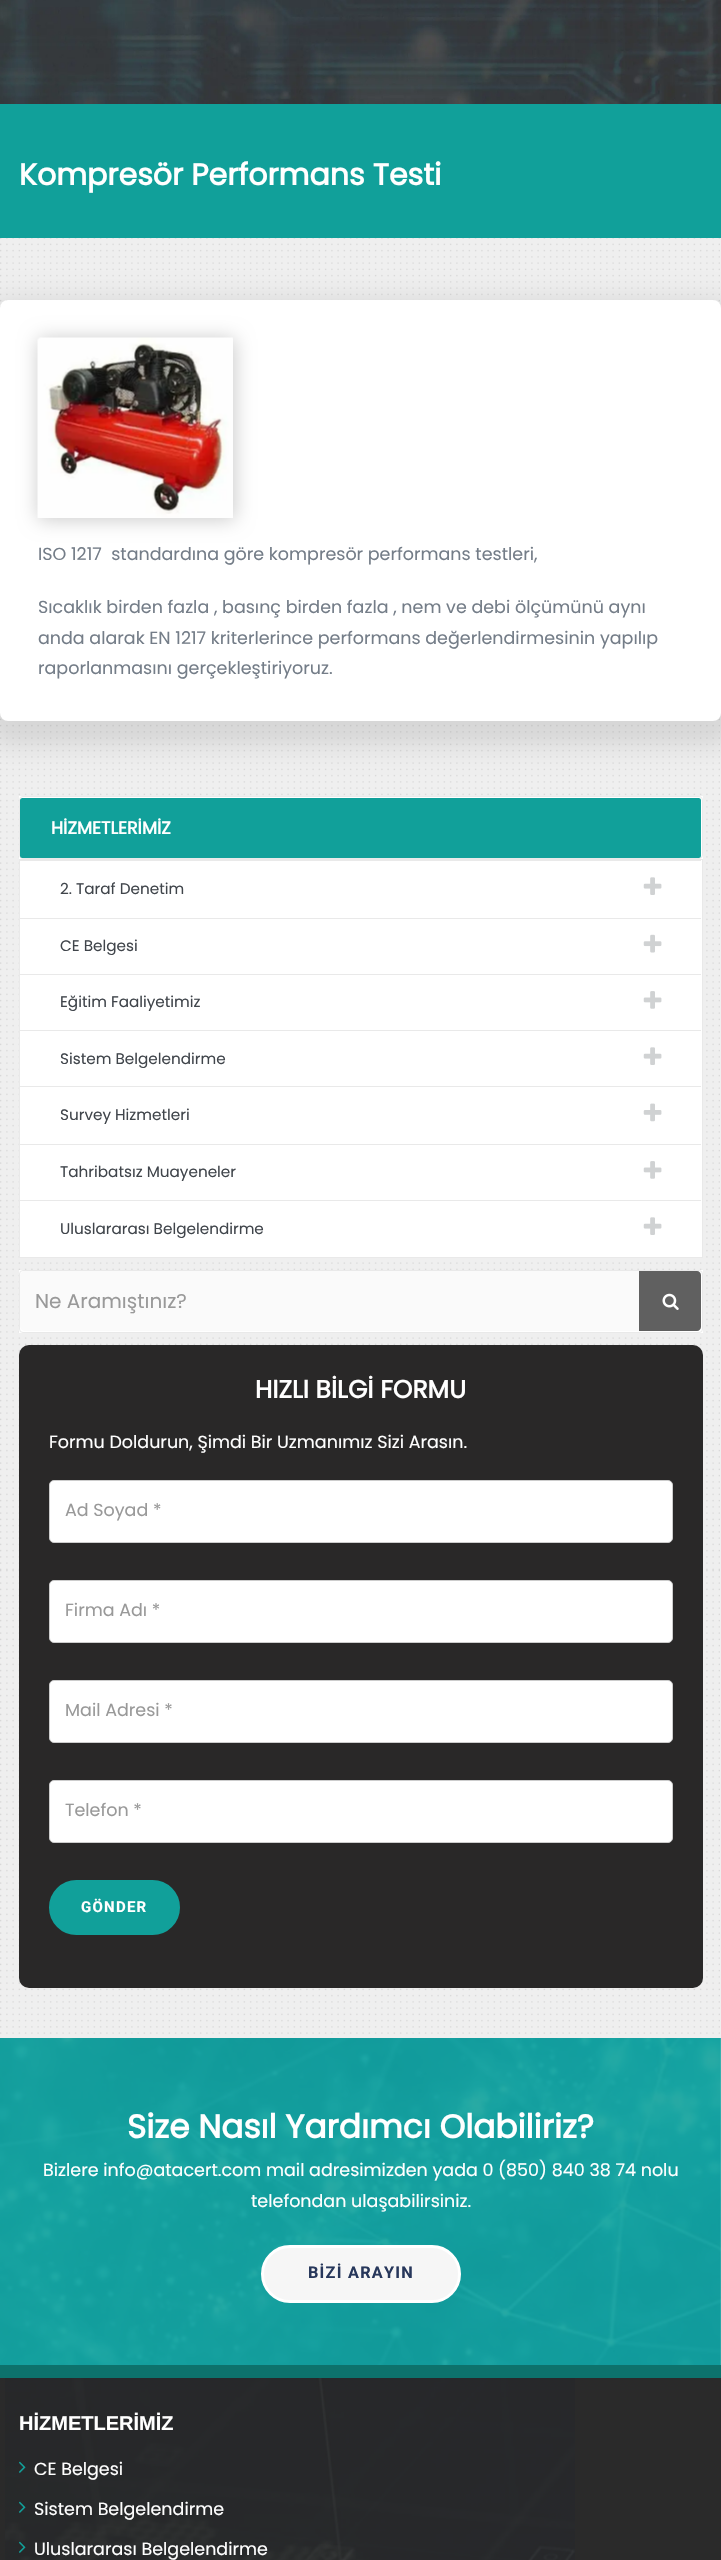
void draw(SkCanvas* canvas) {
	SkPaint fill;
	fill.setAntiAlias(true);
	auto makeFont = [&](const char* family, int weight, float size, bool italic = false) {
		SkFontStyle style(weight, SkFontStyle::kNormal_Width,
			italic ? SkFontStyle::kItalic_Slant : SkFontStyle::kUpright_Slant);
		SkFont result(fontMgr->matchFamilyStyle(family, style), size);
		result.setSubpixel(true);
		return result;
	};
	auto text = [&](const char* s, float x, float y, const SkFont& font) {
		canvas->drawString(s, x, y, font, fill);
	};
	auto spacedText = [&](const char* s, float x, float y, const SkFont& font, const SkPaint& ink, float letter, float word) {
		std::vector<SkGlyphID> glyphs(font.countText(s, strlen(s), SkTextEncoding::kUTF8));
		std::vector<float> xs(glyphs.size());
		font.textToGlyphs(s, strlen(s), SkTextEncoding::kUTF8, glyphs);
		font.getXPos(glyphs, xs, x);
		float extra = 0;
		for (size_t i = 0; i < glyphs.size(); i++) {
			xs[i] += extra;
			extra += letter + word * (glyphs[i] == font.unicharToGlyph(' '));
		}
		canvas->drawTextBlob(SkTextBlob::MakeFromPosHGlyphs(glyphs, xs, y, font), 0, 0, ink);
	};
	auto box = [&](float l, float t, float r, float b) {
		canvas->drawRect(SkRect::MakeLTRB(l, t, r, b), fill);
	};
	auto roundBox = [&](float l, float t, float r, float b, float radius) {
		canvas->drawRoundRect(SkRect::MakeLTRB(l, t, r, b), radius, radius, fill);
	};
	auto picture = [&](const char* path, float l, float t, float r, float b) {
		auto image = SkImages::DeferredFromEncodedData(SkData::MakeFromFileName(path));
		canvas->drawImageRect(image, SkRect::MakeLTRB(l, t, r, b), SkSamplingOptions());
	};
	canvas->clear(0xFFFFFFFF);
	picture("image0.png", 0, 0, 721, 104);
	fill.setColor(0xFF11A09A);
	box(0, 104, 721, 238);
	fill.setColor(0xFFEFEFEF);
	box(0, 238, 721, 2038);
	picture("image1.png", 0, 238, 720, 2034);
	fill.setColor(0x1A000000);
	fill.setMaskFilter(SkMaskFilter::MakeBlur(kNormal_SkBlurStyle, 12.5f));
	canvas->drawRoundRect(SkRect::MakeLTRB(-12, 300, 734, 746), 20, 20, fill);
	fill.setMaskFilter(nullptr);
	fill.setColor(0xFFFFFFFF);
	roundBox(0, 300, 721, 721, 8);
	fill.setColor(0x33000000);
	fill.setMaskFilter(SkMaskFilter::MakeBlur(kNormal_SkBlurStyle, 9.5f));
	canvas->drawRoundRect(SkRect::MakeLTRB(38, 338, 235, 520), 4, 4, fill);
	fill.setMaskFilter(nullptr);
	picture("image2.png", 37, 337, 233, 518);
	fill.setColor(0xFFFFFFFF);
	box(19, 796, 703, 1257);
	fill.setStyle(SkPaint::kStroke_Style);
	fill.setStrokeWidth(1);
	fill.setColor(0xFFEAEAEA);
	canvas->drawRoundRect(SkRect::MakeLTRB(19.5f, 796.5f, 702.5f, 858.5f), 3.5f, 3.5f, fill);
	fill.setStyle(SkPaint::kFill_Style);
	fill.setColor(0xFF11A09A);
	roundBox(20, 798, 701, 858, 2.5f);
	fill.setStyle(SkPaint::kStroke_Style);
	fill.setColor(0xFFE9E9E9);
	canvas->drawRect(SkRect::MakeLTRB(19.5f, 859.5f, 702.5f, 1257.5f), fill);
	fill.setStyle(SkPaint::kFill_Style);
	box(20, 860, 701, 861);
	picture("image3.png", 643, 877, 662, 895);
	box(20, 918, 701, 919);
	picture("image4.png", 643, 934, 662, 953);
	box(20, 974, 701, 975);
	picture("image5.png", 643, 991, 662, 1009);
	box(20, 1030, 701, 1031);
	picture("image3.png", 643, 1047, 662, 1065);
	box(20, 1086, 701, 1087);
	picture("image6.png", 643, 1103, 662, 1122);
	box(20, 1144, 701, 1145);
	picture("image5.png", 643, 1161, 662, 1179);
	box(20, 1200, 701, 1201);
	picture("image3.png", 643, 1217, 662, 1235);
	fill.setColor(0xFFFFFFFF);
	box(19, 1270, 703, 1333);
	fill.setStyle(SkPaint::kStroke_Style);
	fill.setColor(0xFFE9E9E9);
	canvas->drawRoundRect(SkRect::MakeLTRB(19.5f, 1270.5f, 702.5f, 1332.5f), 3.5f, 3.5f, fill);
	fill.setStyle(SkPaint::kFill_Style);
	fill.setColor(0xFFFAFAFA);
	roundBox(20, 1271, 701, 1331, 5);
	fill.setColor(0xFF606060);
	canvas->drawPath(SkPathBuilder().moveTo(639, 1271).lineTo(697, 1271).cubicTo(699, 1271, 701, 1273, 701, 1275).lineTo(701, 1327).cubicTo(701, 1329, 699, 1331, 697, 1331).lineTo(639, 1331).close().detach(), fill);
	picture("image7.png", 662, 1293, 679, 1310);
	fill.setColor(0xFF292828);
	roundBox(19, 1345, 703, 1988, 10);
	fill.setColor(0xFFFFFFFF);
	canvas->drawRoundRect(SkRect::MakeLTRB(49.5f, 1480.5f, 672.5f, 1542.5f), 4.5f, 4.5f, fill);
	fill.setStyle(SkPaint::kStroke_Style);
	fill.setColor(0xFFCCCCCC);
	canvas->drawRoundRect(SkRect::MakeLTRB(49.5f, 1480.5f, 672.5f, 1542.5f), 4.5f, 4.5f, fill);
	fill.setStyle(SkPaint::kFill_Style);
	fill.setColor(0xFFFFFFFF);
	canvas->drawRoundRect(SkRect::MakeLTRB(49.5f, 1580.5f, 672.5f, 1642.5f), 4.5f, 4.5f, fill);
	fill.setStyle(SkPaint::kStroke_Style);
	fill.setColor(0xFFCCCCCC);
	canvas->drawRoundRect(SkRect::MakeLTRB(49.5f, 1580.5f, 672.5f, 1642.5f), 4.5f, 4.5f, fill);
	fill.setStyle(SkPaint::kFill_Style);
	fill.setColor(0xFFFFFFFF);
	canvas->drawRoundRect(SkRect::MakeLTRB(49.5f, 1680.5f, 672.5f, 1742.5f), 4.5f, 4.5f, fill);
	fill.setStyle(SkPaint::kStroke_Style);
	fill.setColor(0xFFCCCCCC);
	canvas->drawRoundRect(SkRect::MakeLTRB(49.5f, 1680.5f, 672.5f, 1742.5f), 4.5f, 4.5f, fill);
	fill.setStyle(SkPaint::kFill_Style);
	fill.setColor(0xFFFFFFFF);
	canvas->drawRoundRect(SkRect::MakeLTRB(49.5f, 1780.5f, 672.5f, 1842.5f), 4.5f, 4.5f, fill);
	fill.setStyle(SkPaint::kStroke_Style);
	fill.setColor(0xFFCCCCCC);
	canvas->drawRoundRect(SkRect::MakeLTRB(49.5f, 1780.5f, 672.5f, 1842.5f), 4.5f, 4.5f, fill);
	fill.setStyle(SkPaint::kFill_Style);
	fill.setColor(0xFF11A09A);
	canvas->drawRoundRect(SkRect::MakeLTRB(50.5f, 1881.5f, 178.5f, 1933.5f), 26, 26, fill);
	fill.setStyle(SkPaint::kStroke_Style);
	fill.setStrokeWidth(3);
	canvas->drawRoundRect(SkRect::MakeLTRB(50.5f, 1881.5f, 178.5f, 1933.5f), 26, 26, fill);
	picture("image8.png", 0, 2038, 721, 2365);
	fill.setStyle(SkPaint::kFill_Style);
	fill.setColor(0xFFF6F6F6);
	canvas->drawRoundRect(SkRect::MakeLTRB(262.5f, 2246.5f, 459.5f, 2301.5f), 27.5f, 27.5f, fill);
	fill.setStyle(SkPaint::kStroke_Style);
	fill.setColor(0xFFFFFFFF);
	canvas->drawRoundRect(SkRect::MakeLTRB(262.5f, 2246.5f, 459.5f, 2301.5f), 27.5f, 27.5f, fill);
	fill.setStyle(SkPaint::kFill_Style);
	fill.setColor(0xFF2A2A2A);
	box(0, 2378, 721, 2560);
	picture("image9.png", 5, 2378, 575, 2560);
	fill.setColor(0xFF0D726C);
	box(0, 2365, 721, 2378);
	picture("image10.png", 19, 2461, 26, 2473);
	picture("image11.png", 19, 2501, 26, 2513);
	picture("image12.png", 19, 2541, 26, 2553);
	auto font1 = makeFont("Poppins", 700, 30);
	fill.setColor(0xFFFFFFFF);
	text("Kompresör Performans Testi", 19, 185, font1);
	auto font2 = makeFont("Poppins", 400, 17.5f);
	fill.setColor(0xFF747D88);
	text("ISO 1217  standardına göre kompresör performans testleri,", 38, 560, font2);
	text("Sıcaklık birden fazla , basınç birden fazla , nem ve debi ölçümünü aynı", 38, 613, font2);
	text("anda alarak EN 1217 kriterlerince performans değerlendirmesinin yapılıp", 38, 644, font2);
	text("raporlanmasını gerçekleştiriyoruz.", 38, 674, font2);
	auto font3 = makeFont("Poppins", 700, 17.5f);
	fill.setColor(0xFFFFFFFF);
	text("HİZMETLERİMİZ", 51, 834, font3);
	auto font4 = makeFont("Poppins", 400, 15.25f);
	fill.setColor(0xFF40454B);
	text("2. Taraf Denetim", 60, 894, font4);
	text("CE Belgesi", 60, 951, font4);
	text("Eğitim Faaliyetimiz", 60, 1007, font4);
	text("Sistem Belgelendirme", 60, 1064, font4);
	text("Survey Hizmetleri", 60, 1120, font4);
	text("Tahribatsız Muayeneler", 60, 1177, font4);
	text("Uluslararası Belgelendirme", 60, 1234, font4);
	auto font5 = makeFont("Poppins", 400, 20);
	fill.setColor(0xFF999999);
	text("Ne Aramıştınız?", 35, 1308, font5);
	auto font6 = makeFont("Poppins", 700, 25);
	fill.setColor(0xFFFFFFFF);
	text("HIZLI BİLGİ FORMU", 255, 1398, font6);
	text("Formu Doldurun, Şimdi Bir Uzmanımız Sizi Arasın.", 49, 1448, font2);
	fill.setColor(0xFF999999);
	text("Ad Soyad *", 65, 1516, font2);
	text("Firma Adı *", 65, 1616, font2);
	text("Mail Adresi *", 65, 1716, font2);
	text("Telefon *", 65, 1816, font2);
	auto font7 = makeFont("Roboto", 700, 15);
	fill.setColor(0xFFFFFFFF);
	spacedText("GÖNDER", 81, 1912, font7, fill, 1.25f, 0);
	auto font8 = makeFont("Poppins", 700, 32.75f);
	text("Size Nasıl Yardımcı Olabiliriz?", 127, 2138, font8);
	text("Bizlere info@atacert.com mail adresimizden yada 0 (850) 840 38 74 nolu", 43, 2176, font2);
	text("telefondan ulaşabilirsiniz.", 251, 2207, font2);
	auto font9 = makeFont("Roboto", 700, 16.25f);
	fill.setColor(0xFF27375B);
	spacedText("BİZİ ARAYIN", 308, 2278, font9, fill, 1.25f, 0);
	auto font10 = makeFont("Liberation Sans", 700, 20);
	fill.setColor(0xFFFFFFFF);
	text("HİZMETLERİMİZ", 19, 2430, font10);
	text("CE Belgesi", 34, 2475, font2);
	text("Sistem Belgelendirme", 34, 2515, font2);
	text("Uluslararası Belgelendirme", 34, 2555, font2);
}
